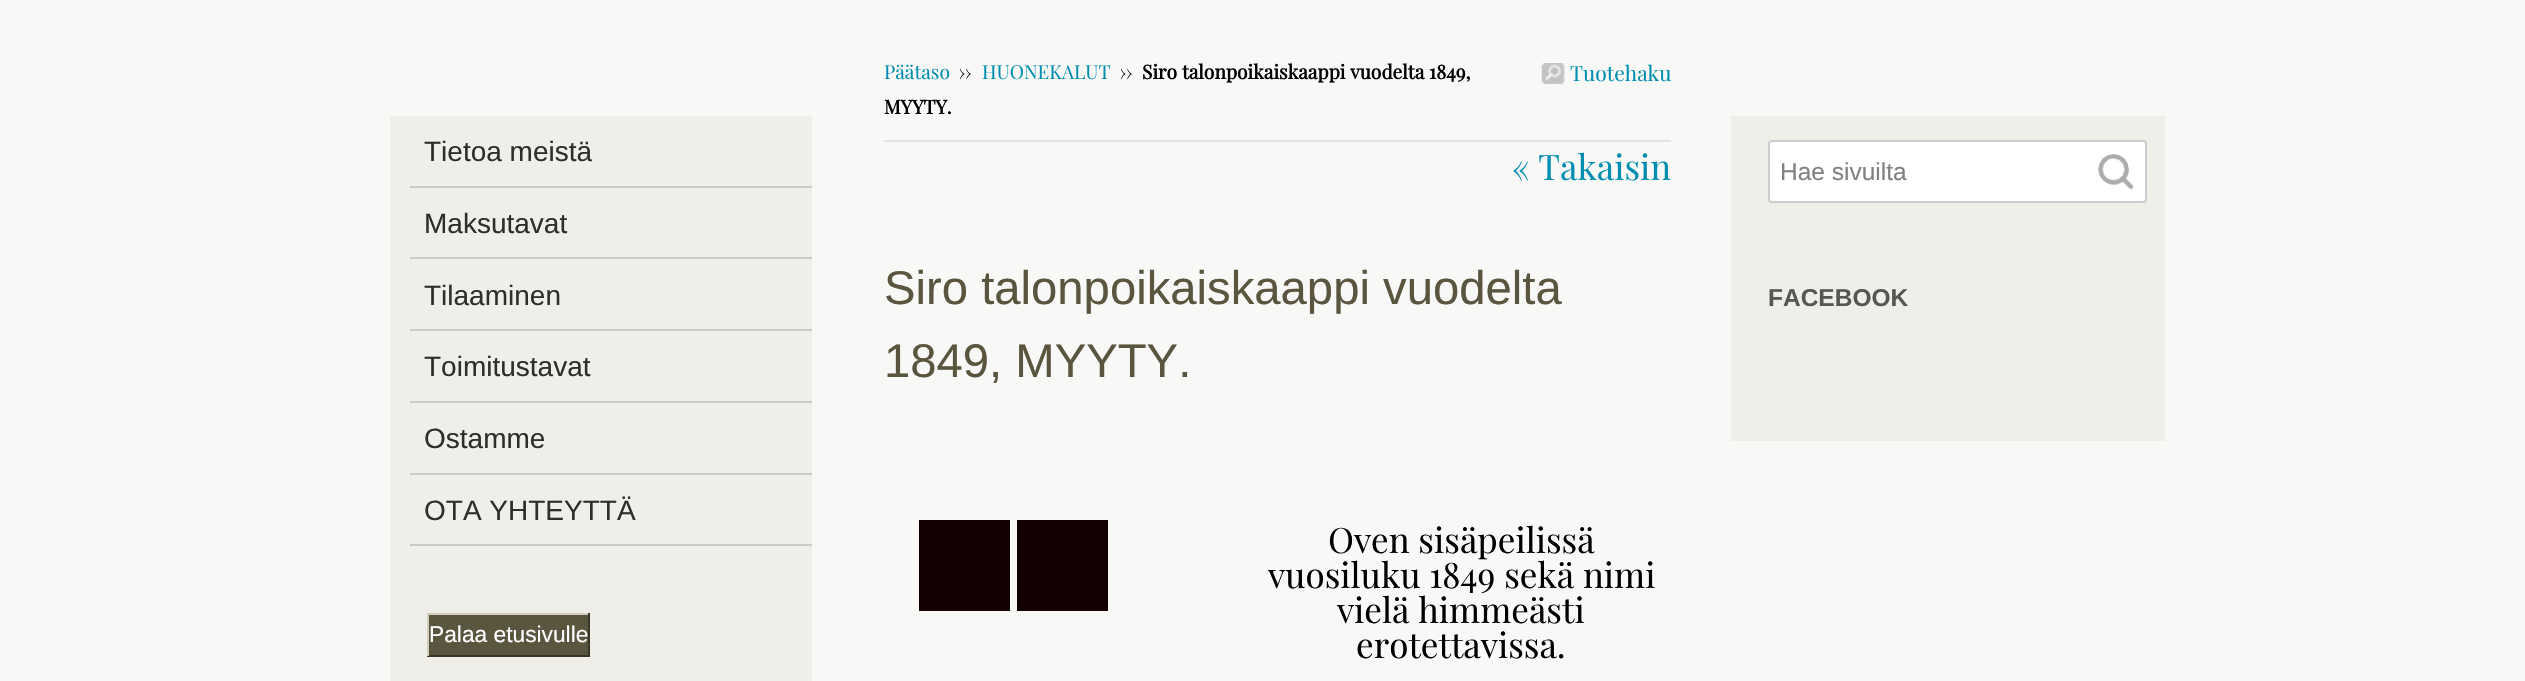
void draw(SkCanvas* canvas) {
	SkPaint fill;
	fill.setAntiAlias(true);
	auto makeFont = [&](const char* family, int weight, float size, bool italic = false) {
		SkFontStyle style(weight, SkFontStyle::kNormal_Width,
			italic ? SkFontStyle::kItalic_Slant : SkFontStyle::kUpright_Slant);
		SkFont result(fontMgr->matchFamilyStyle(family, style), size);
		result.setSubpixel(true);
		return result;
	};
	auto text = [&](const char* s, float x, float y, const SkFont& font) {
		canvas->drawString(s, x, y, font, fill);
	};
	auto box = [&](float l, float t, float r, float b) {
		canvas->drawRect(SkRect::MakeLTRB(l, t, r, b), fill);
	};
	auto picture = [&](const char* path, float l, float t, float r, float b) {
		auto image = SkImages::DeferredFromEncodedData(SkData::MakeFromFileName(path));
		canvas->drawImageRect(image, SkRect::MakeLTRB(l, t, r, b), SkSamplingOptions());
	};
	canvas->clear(0xFFF8F8F7);
	fill.setColor(0xFFF0EEE8);
	box(390, 116, 812, 681);
	fill.setColor(0xFFCCCAC5);
	box(410, 186, 812, 188);
	box(410, 257, 812, 259);
	box(410, 329, 812, 331);
	box(410, 401, 812, 403);
	box(410, 473, 812, 475);
	box(410, 544, 812, 546);
	fill.setColor(0xFF5A553F);
	box(429, 615, 588, 655);
	fill.setColor(0xFFD5CDBB);
	box(427, 613, 590, 615);
	fill.setColor(0xFF393627);
	box(588, 613, 590, 656);
	box(427, 655, 590, 657);
	fill.setColor(0xFFD5CDBB);
	box(427, 613, 429, 656);
	picture("image0.png", 1541, 63, 1565, 84);
	picture("image1.png", 884, 140, 1671, 142);
	fill.setColor(0xFF130000);
	box(919, 520, 1010, 611);
	box(1017, 520, 1108, 611);
	fill.setColor(0xFFF0EEE8);
	box(1731, 116, 2165, 441);
	fill.setColor(0xFFFFFFFF);
	canvas->drawRoundRect(SkRect::MakeLTRB(1769, 141, 2146, 202), 3, 3, fill);
	fill.setStyle(SkPaint::kStroke_Style);
	fill.setStrokeWidth(2);
	fill.setColor(0xFFCCCCCC);
	canvas->drawRoundRect(SkRect::MakeLTRB(1769, 141, 2146, 202), 3, 3, fill);
	picture("image2.png", 2098, 154, 2134, 189);
	auto font1 = makeFont("Liberation Sans", 400, 28);
	fill.setStyle(SkPaint::kFill_Style);
	fill.setColor(0xFF2E2E2E);
	text("Tietoa meistä", 424, 161, font1);
	text("Maksutavat", 424, 233, font1);
	text("Tilaaminen", 424, 305, font1);
	text("Toimitustavat", 424, 376, font1);
	text("Ostamme", 424, 448, font1);
	text("OTA YHTEYTTÄ", 424, 520, font1);
	auto font2 = makeFont("Liberation Sans", 400, 22.75f);
	fill.setColor(0xFFFFFFFF);
	text("Palaa etusivulle", 429, 642, font2);
	auto font3 = makeFont("Playfair Display", 400, 19.25f);
	fill.setColor(0xFF008EB0);
	text("Päätaso", 884, 79, font3);
	fill.setColor(0xFF000000);
	text("››", 959, 79, font3);
	fill.setColor(0xFF008EB0);
	text("HUONEKALUT", 982, 79, font3);
	fill.setColor(0xFF000000);
	text("››", 1120, 79, font3);
	auto font4 = makeFont("Playfair Display", 700, 19.25f);
	text("Siro talonpoikaiskaappi vuodelta 1849,", 1142, 79, font4);
	auto font5 = makeFont("Playfair Display", 400, 21);
	fill.setColor(0xFF008EB0);
	text("Tuotehaku", 1570, 81, font5);
	fill.setColor(0xFF000000);
	text("MYYTY.", 884, 114, font4);
	auto font6 = makeFont("Playfair Display", 400, 35);
	fill.setColor(0xFF008EB0);
	text("« Takaisin", 1512, 180, font6);
	auto font7 = makeFont("Liberation Sans", 400, 47.25f);
	fill.setColor(0xFF5A553F);
	text("Siro talonpoikaiskaappi vuodelta", 884, 304, font7);
	text("1849, MYYTY.", 884, 377, font7);
	fill.setColor(0xFF000000);
	text("Oven sisäpeilissä", 1328, 553, font6);
	text("vuosiluku 1849 sekä nimi", 1268, 588, font6);
	text("vielä himmeästi", 1337, 623, font6);
	text("erotettavissa.", 1356, 658, font6);
	auto font8 = makeFont("Liberation Sans", 400, 24.5f);
	fill.setColor(0xFF818181);
	text("Hae sivuilta", 1780, 180, font8);
	auto font9 = makeFont("Liberation Sans", 700, 24.5f);
	fill.setColor(0xFF585652);
	text("FACEBOOK", 1768, 306, font9);
}
